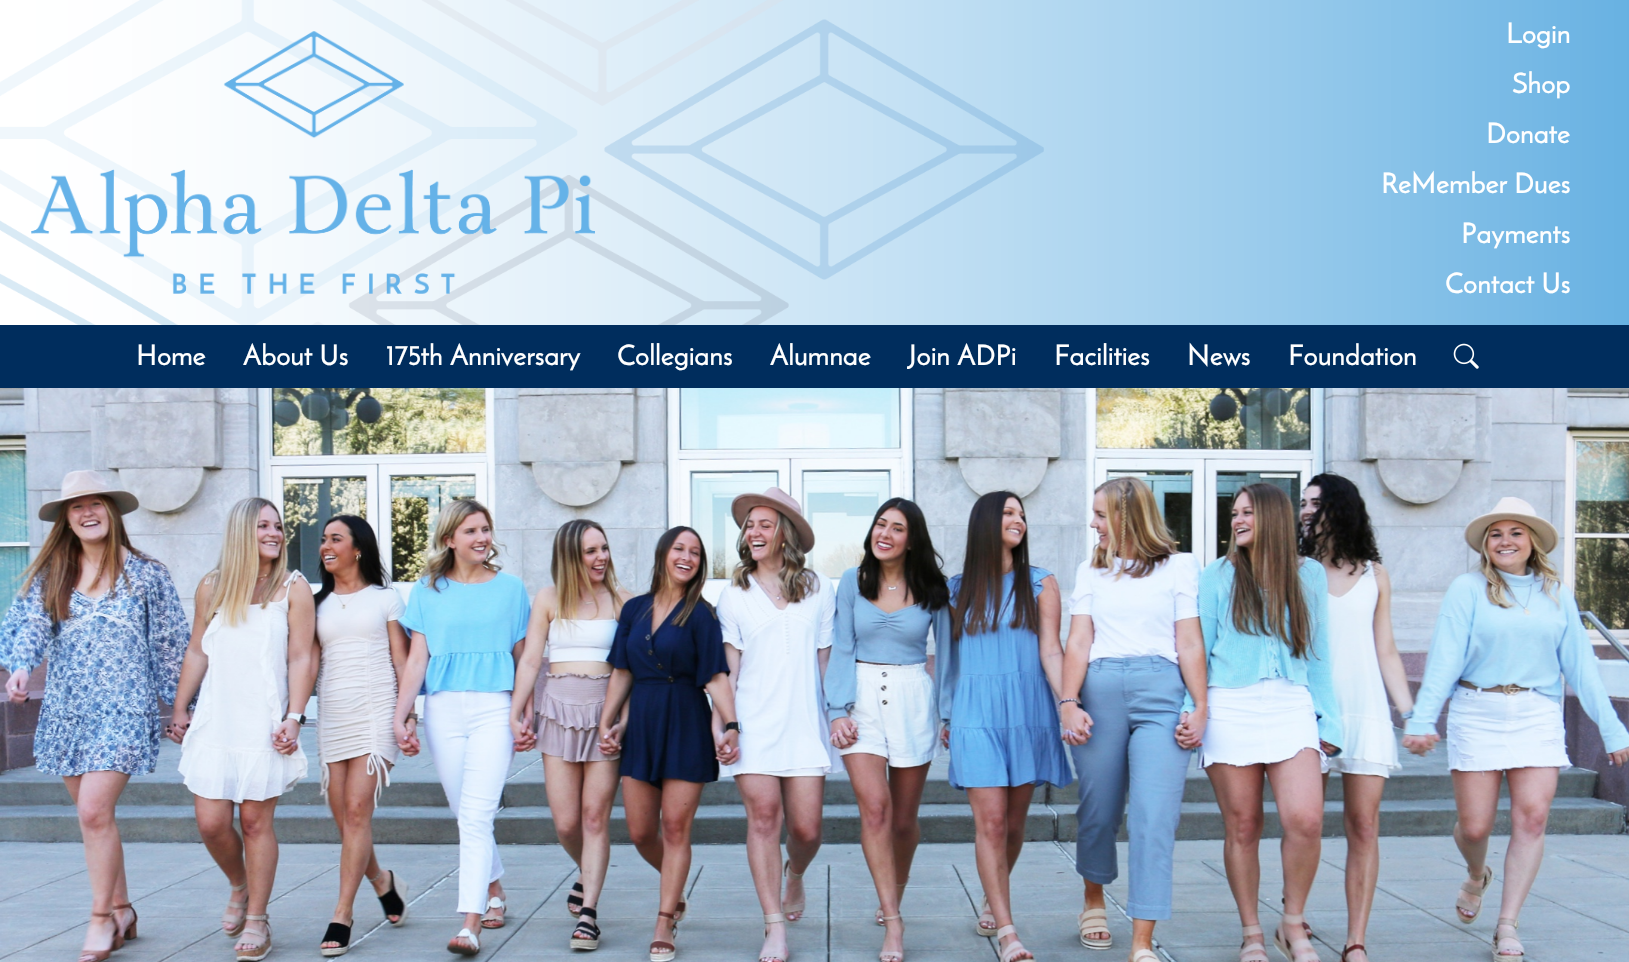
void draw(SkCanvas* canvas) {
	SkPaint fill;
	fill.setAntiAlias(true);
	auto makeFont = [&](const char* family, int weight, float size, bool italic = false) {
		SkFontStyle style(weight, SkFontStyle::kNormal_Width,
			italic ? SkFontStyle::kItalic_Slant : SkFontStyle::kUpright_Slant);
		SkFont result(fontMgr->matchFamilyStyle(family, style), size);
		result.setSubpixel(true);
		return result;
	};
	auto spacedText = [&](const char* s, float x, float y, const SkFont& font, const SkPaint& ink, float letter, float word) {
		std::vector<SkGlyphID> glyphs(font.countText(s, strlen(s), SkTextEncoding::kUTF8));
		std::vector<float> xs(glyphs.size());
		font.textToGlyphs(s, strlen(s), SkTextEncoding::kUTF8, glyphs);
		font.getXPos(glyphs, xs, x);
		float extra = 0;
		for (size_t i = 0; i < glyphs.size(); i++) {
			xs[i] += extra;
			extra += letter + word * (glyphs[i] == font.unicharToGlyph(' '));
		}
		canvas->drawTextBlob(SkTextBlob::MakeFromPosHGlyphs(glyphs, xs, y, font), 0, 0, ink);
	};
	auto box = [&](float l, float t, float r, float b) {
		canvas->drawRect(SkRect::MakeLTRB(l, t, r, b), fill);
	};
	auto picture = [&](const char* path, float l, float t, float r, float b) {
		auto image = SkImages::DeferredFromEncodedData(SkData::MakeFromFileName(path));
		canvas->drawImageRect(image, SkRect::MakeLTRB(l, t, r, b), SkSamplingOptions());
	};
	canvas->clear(0xFFFFFFFF);
	picture("image0.png", 0, 0, 1629, 325);
	picture("image1.png", 31, 31, 595, 294);
	fill.setColor(0xFF002D5D);
	box(0, 325, 1629, 388);
	picture("image2.png", 1453, 343, 1479, 369);
	picture("image3.png", 0, 388, 1629, 962);
	auto font1 = makeFont("Josefin Sans", 700, 27.5f);
	fill.setColor(0xFFFFFFFF);
	spacedText("Login", 1506, 43, font1, fill, 0.4f, 0);
	spacedText("Shop", 1512, 93, font1, fill, 0.4f, 0);
	spacedText("Donate", 1486, 143, font1, fill, 0.4f, 0);
	spacedText("ReMember Dues", 1381, 193, font1, fill, 0.4f, 0);
	spacedText("Payments", 1461, 243, font1, fill, 0.4f, 0);
	spacedText("Contact Us", 1445, 293, font1, fill, 0.4f, 0);
	spacedText("Home", 136, 365, font1, fill, 0.4f, 0);
	spacedText("About Us", 243, 365, font1, fill, 0.4f, 0);
	spacedText("175th Anniversary", 386, 365, font1, fill, 0.4f, 0);
	spacedText("Collegians", 617, 365, font1, fill, 0.4f, 0);
	spacedText("Alumnae", 770, 365, font1, fill, 0.4f, 0);
	spacedText("Join ADPi", 908, 365, font1, fill, 0.4f, 0);
	spacedText("Facilities", 1054, 365, font1, fill, 0.4f, 0);
	spacedText("News", 1187, 365, font1, fill, 0.4f, 0);
	spacedText("Foundation", 1288, 365, font1, fill, 0.4f, 0);
}
